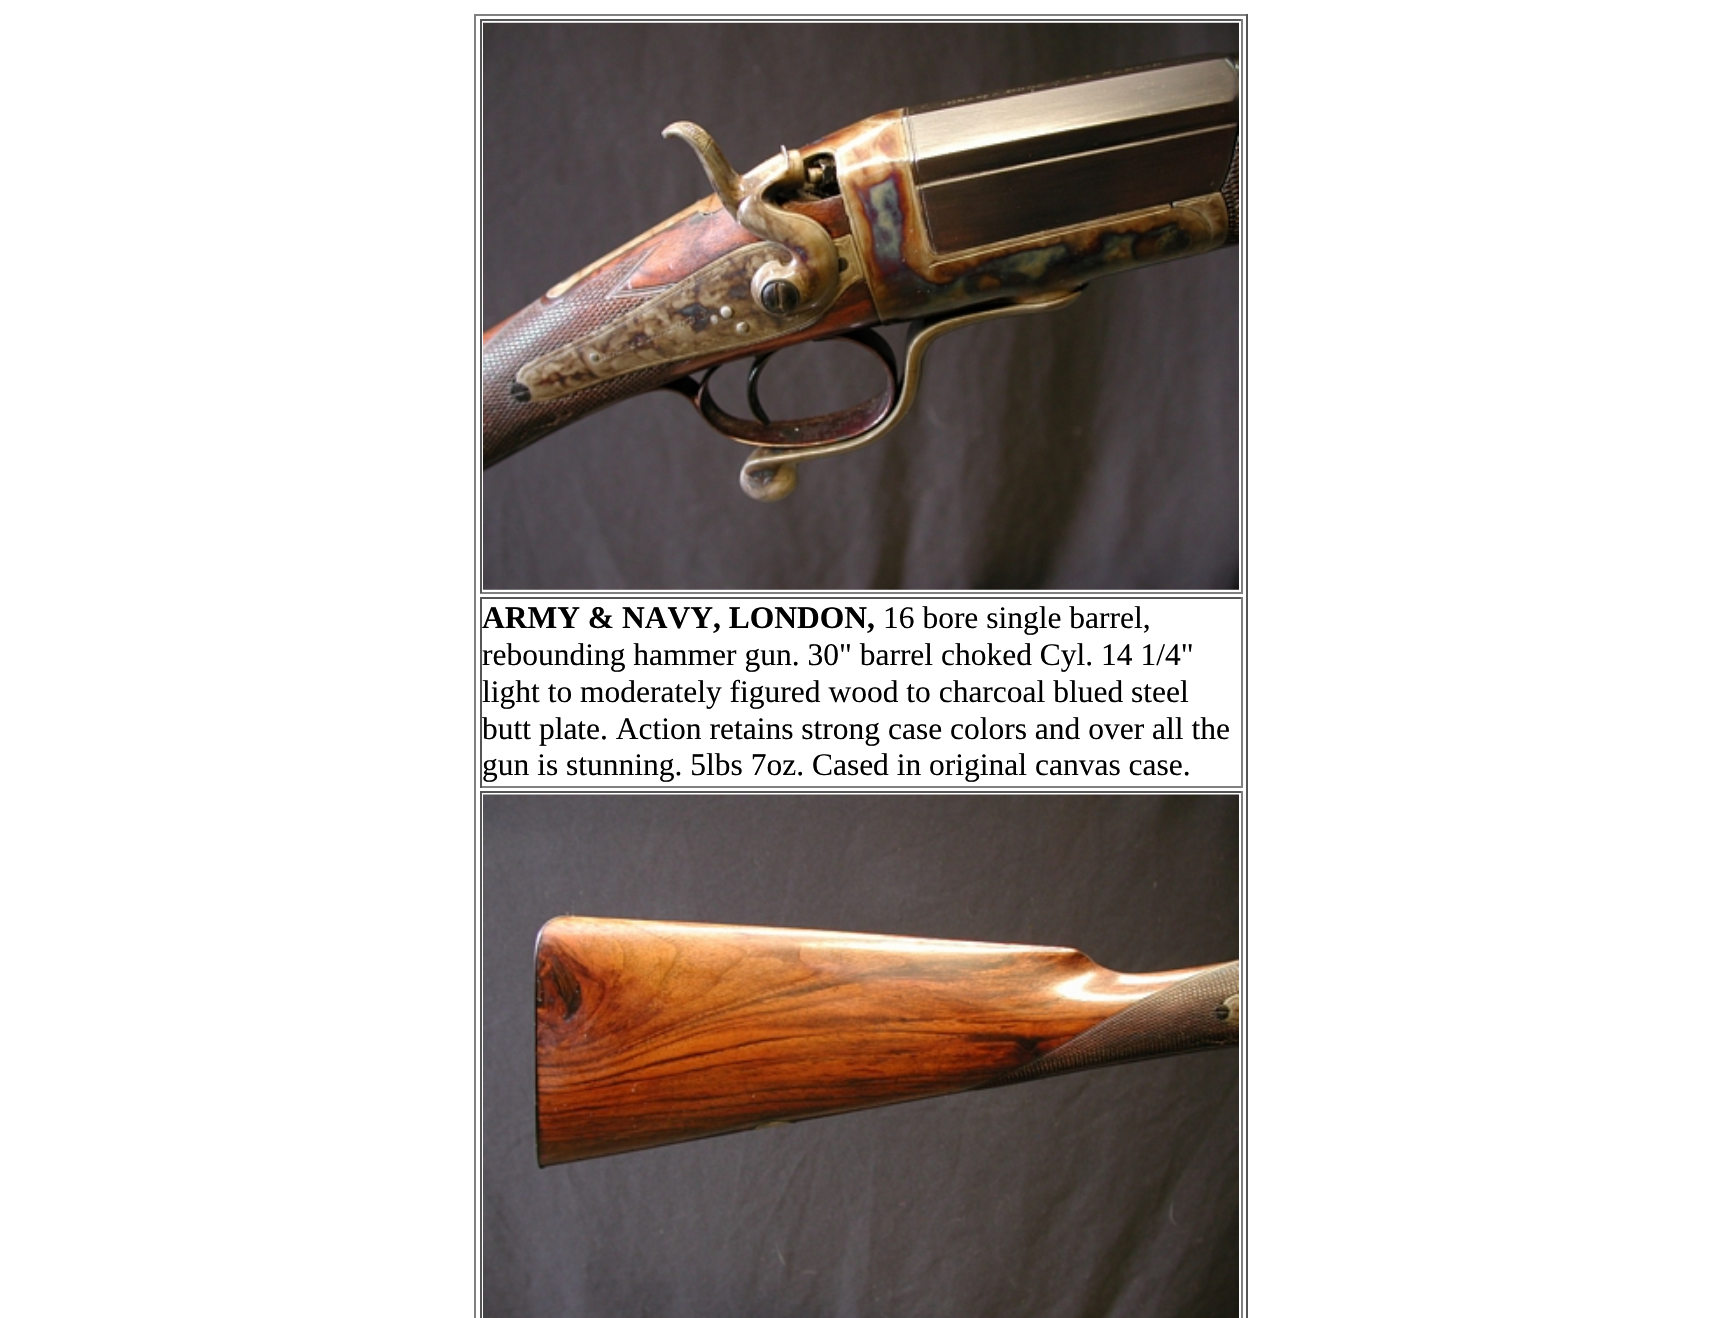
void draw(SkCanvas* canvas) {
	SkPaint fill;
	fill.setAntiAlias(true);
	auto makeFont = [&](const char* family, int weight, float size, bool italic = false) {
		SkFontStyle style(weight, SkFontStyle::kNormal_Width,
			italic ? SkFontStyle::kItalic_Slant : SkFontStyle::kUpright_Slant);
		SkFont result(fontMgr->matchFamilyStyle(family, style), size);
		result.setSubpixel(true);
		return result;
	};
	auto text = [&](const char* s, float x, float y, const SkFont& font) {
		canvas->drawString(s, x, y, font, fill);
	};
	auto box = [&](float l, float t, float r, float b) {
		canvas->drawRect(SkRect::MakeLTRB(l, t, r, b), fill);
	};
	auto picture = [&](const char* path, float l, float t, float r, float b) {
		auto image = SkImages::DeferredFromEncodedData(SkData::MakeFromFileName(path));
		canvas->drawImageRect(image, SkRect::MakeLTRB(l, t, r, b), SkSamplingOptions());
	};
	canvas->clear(0xFFFFFFFF);
	fill.setColor(0xFF808080);
	box(474, 14, 1248, 16);
	fill.setColor(0xFF555555);
	box(1246, 14, 1248, 1318);
	fill.setColor(0xFF808080);
	box(474, 14, 476, 1318);
	fill.setColor(0xFF555555);
	box(480, 19, 1243, 21);
	fill.setColor(0xFF808080);
	box(1241, 19, 1243, 593);
	box(480, 592, 1243, 594);
	fill.setColor(0xFF555555);
	box(480, 19, 482, 593);
	picture("image0.png", 483, 22, 1239, 590);
	box(480, 597, 1243, 599);
	fill.setColor(0xFF808080);
	box(1241, 597, 1243, 788);
	box(480, 786, 1243, 788);
	fill.setColor(0xFF555555);
	box(480, 597, 482, 788);
	box(480, 791, 1243, 793);
	fill.setColor(0xFF808080);
	box(1241, 791, 1243, 1318);
	fill.setColor(0xFF555555);
	box(480, 791, 482, 1318);
	picture("image1.png", 483, 794, 1239, 1318);
	auto font1 = makeFont("Liberation Serif", 700, 31.5f);
	fill.setColor(0xFF000000);
	text("ARMY & NAVY, LONDON,", 482, 628, font1);
	auto font2 = makeFont("Liberation Serif", 400, 31.5f);
	text("16 bore single barrel,", 883, 628, font2);
	text("rebounding hammer gun. 30\" barrel choked Cyl. 14 1/4\"", 482, 665, font2);
	text("light to moderately figured wood to charcoal blued steel", 482, 702, font2);
	text("butt plate. Action retains strong case colors and over all the", 482, 739, font2);
	text("gun is stunning. 5lbs 7oz. Cased in original canvas case.", 482, 775, font2);
}
